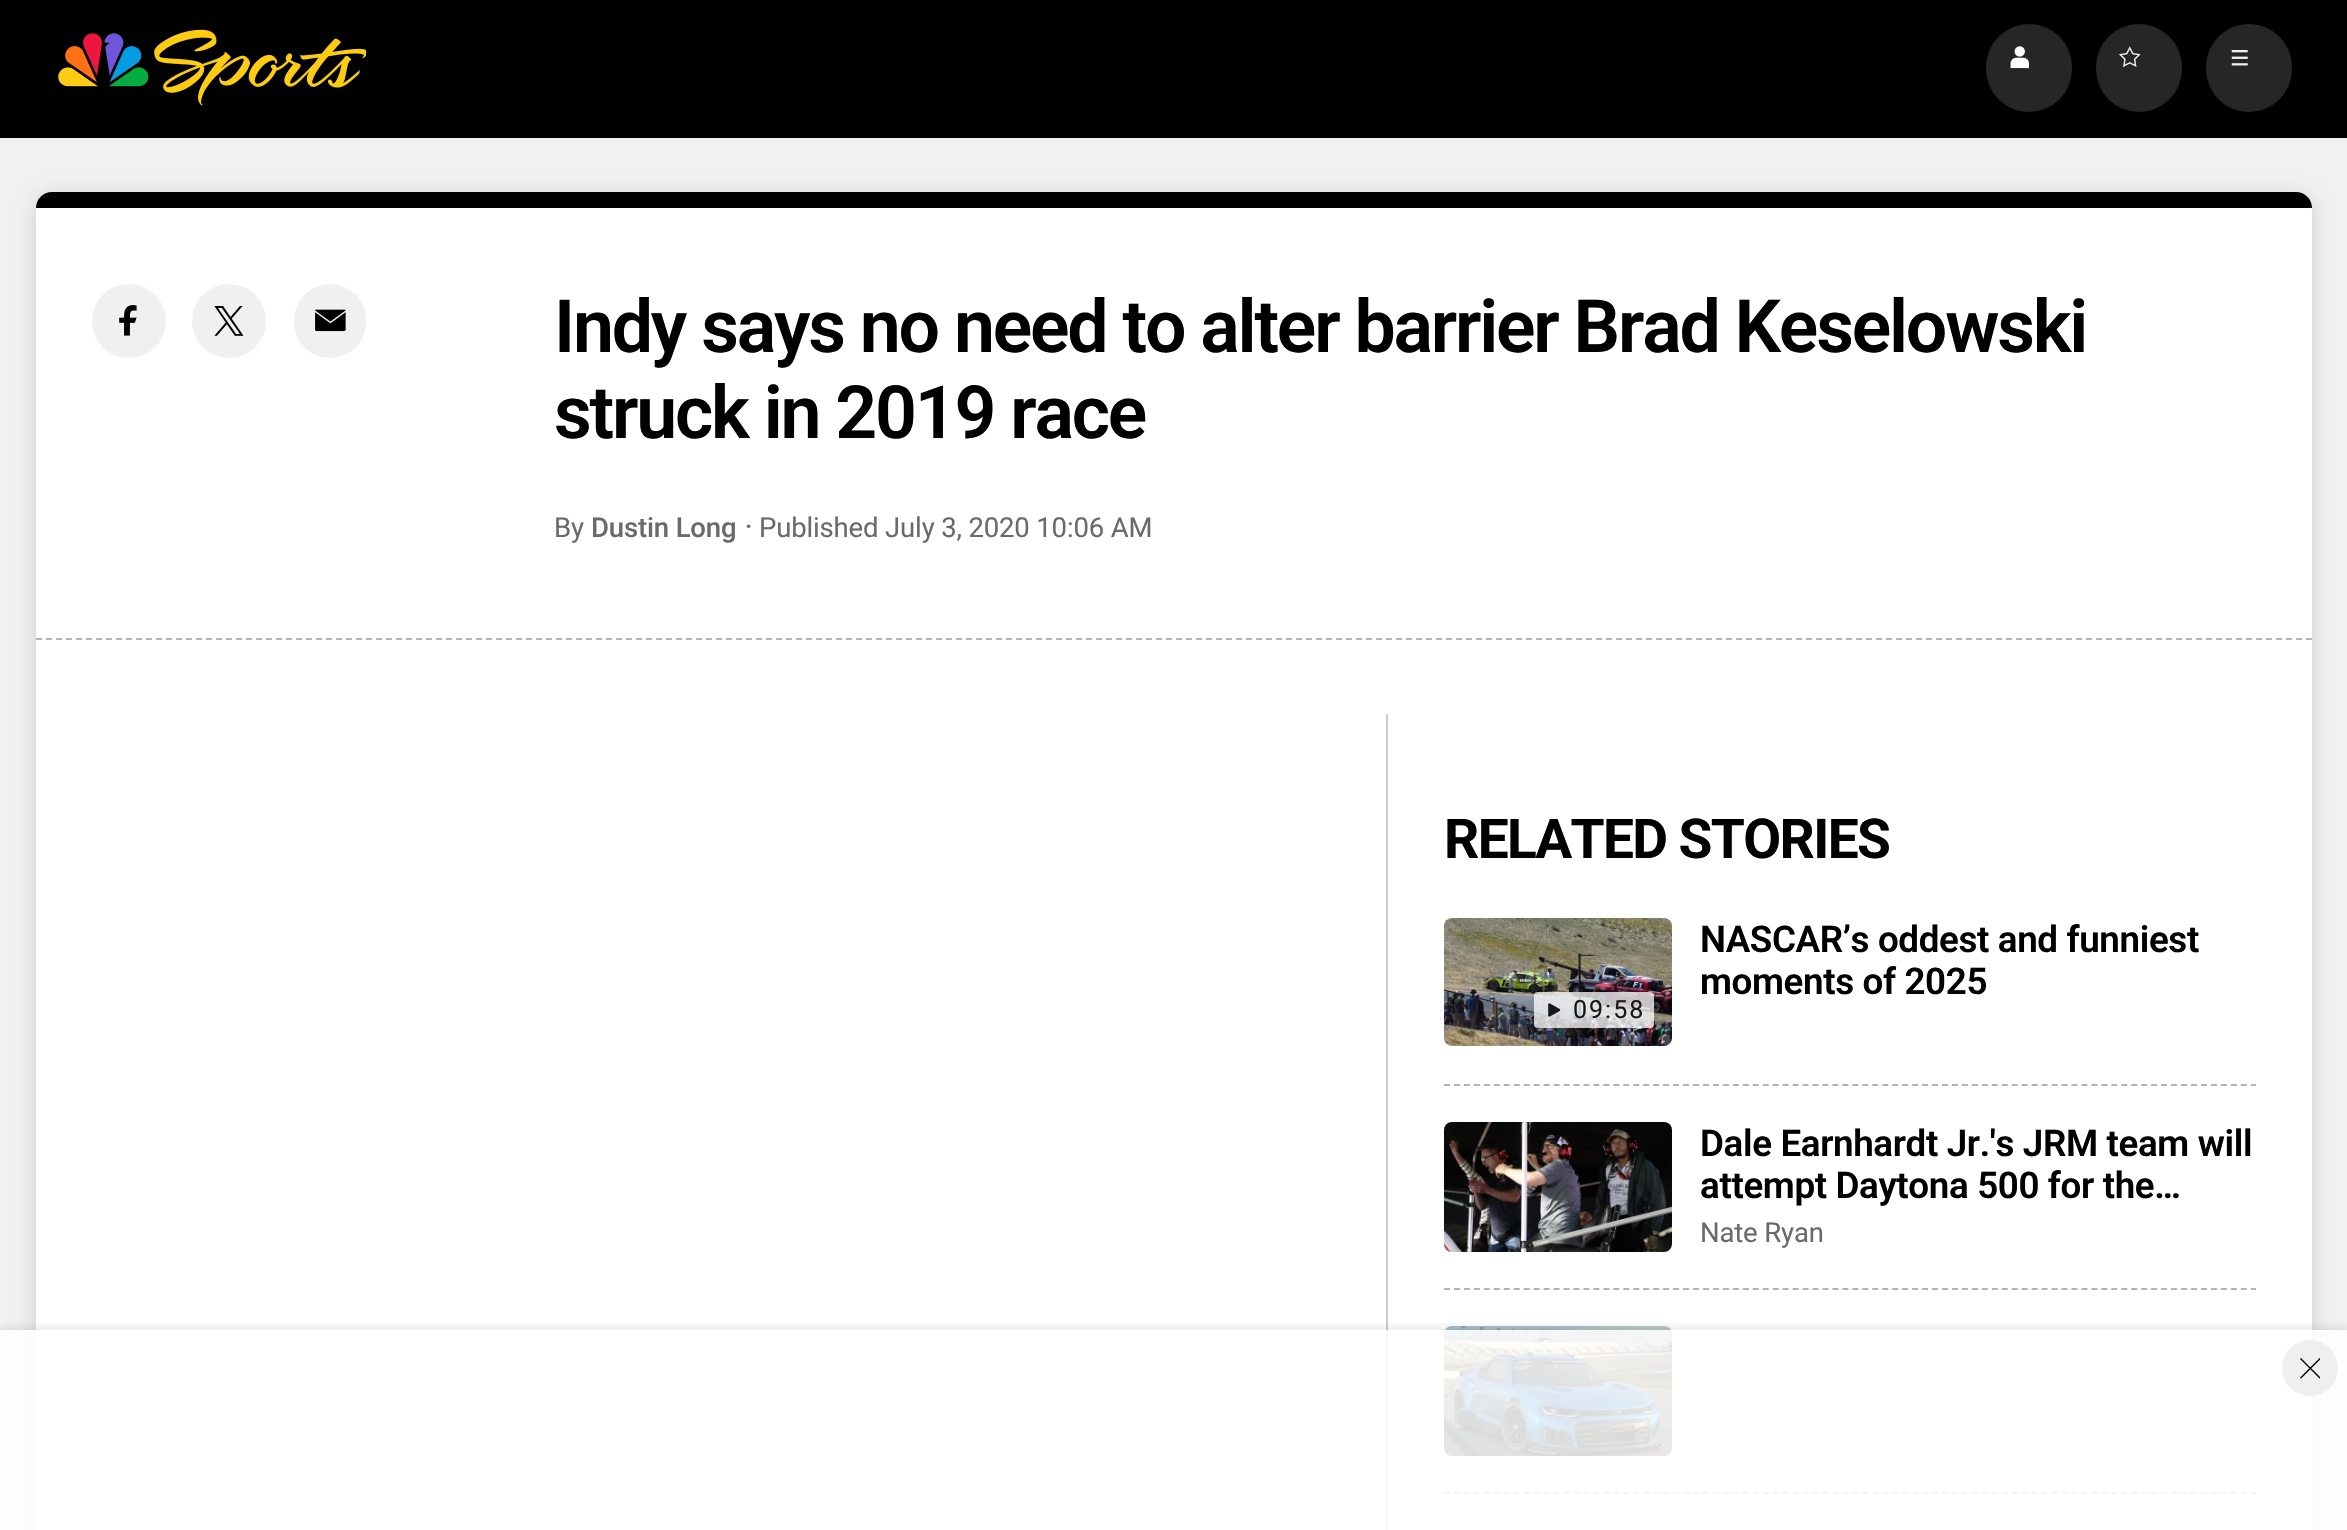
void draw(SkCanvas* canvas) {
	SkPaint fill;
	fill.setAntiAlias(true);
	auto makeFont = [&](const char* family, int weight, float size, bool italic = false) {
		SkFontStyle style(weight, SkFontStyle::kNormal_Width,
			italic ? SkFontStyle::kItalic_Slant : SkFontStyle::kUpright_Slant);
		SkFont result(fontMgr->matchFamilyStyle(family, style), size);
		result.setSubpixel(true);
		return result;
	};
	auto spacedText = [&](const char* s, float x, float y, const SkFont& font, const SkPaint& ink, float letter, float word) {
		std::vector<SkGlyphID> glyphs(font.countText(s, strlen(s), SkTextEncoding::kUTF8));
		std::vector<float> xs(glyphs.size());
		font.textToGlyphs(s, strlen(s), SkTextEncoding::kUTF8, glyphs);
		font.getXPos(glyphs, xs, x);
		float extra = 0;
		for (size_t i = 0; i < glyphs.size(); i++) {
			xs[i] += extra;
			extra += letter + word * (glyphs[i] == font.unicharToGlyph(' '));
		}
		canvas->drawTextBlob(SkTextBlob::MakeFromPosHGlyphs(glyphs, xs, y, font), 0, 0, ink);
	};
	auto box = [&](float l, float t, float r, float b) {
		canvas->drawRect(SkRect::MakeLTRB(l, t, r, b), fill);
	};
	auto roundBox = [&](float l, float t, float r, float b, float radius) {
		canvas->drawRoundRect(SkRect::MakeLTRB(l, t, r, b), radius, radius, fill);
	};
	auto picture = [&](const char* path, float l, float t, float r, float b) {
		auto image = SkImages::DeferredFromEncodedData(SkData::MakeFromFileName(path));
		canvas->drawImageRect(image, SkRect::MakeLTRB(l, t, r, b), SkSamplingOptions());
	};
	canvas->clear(0xFFF1F1F1);
	fill.setColor(0xFF000000);
	box(0, 0, 2347, 138);
	picture("image0.png", 58, 29, 366, 106);
	fill.setColor(0xFF262626);
	roundBox(1986, 24, 2072, 112, 43);
	picture("image1.png", 2010, 46, 2029, 69);
	roundBox(2096, 24, 2182, 112, 43);
	picture("image2.png", 2119, 46, 2141, 67);
	roundBox(2206, 24, 2292, 112, 43);
	picture("image3.png", 2231, 50, 2248, 66);
	fill.setColor(0x26000000);
	fill.setMaskFilter(SkMaskFilter::MakeBlur(kNormal_SkBlurStyle, 10));
	canvas->drawRoundRect(SkRect::MakeLTRB(36, 196, 2312, 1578), 18, 18, fill);
	fill.setMaskFilter(nullptr);
	fill.setColor(0xFFFFFFFF);
	roundBox(36, 192, 2312, 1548, 18);
	fill.setColor(0xFF000000);
	canvas->drawPath(SkPathBuilder().moveTo(52, 192).lineTo(2296, 192).cubicTo(2305, 192, 2312, 199, 2312, 208).lineTo(36, 208).cubicTo(36, 199, 43, 192, 52, 192).close().detach(), fill);
	fill.setStyle(SkPaint::kStroke_Style);
	fill.setStrokeWidth(2);
	fill.setColor(0xFFB3B3B3);
	fill.setPathEffect(SkDashPathEffect::Make({{6, 4}}, 0));
	canvas->drawPath(SkPathBuilder().moveTo(36, 639).lineTo(2312, 639).detach(), fill);
	fill.setPathEffect(nullptr);
	fill.setStyle(SkPaint::kFill_Style);
	fill.setColor(0xFFF0F0F0);
	canvas->drawCircle(129, 321, 37, fill);
	picture("image4.png", 119, 305, 137, 336);
	canvas->drawCircle(229, 321, 37, fill);
	picture("image5.png", 214, 306, 244, 336);
	roundBox(294, 284, 366, 358, 36);
	picture("image6.png", 315, 309, 346, 332);
	fill.setColor(0xFF6A6A6A);
	canvas->drawCircle(748.6f, 526.3f, 1.8f, fill);
	fill.setColor(0xFFCCCCCC);
	box(1386, 714, 1388, 1530);
	picture("image7.png", 1444, 918, 1672, 1046);
	fill.setColor(0xBFFFFFFF);
	roundBox(1534, 992, 1654, 1028, 4);
	picture("image8.png", 1548, 1003, 1561, 1017);
	fill.setStyle(SkPaint::kStroke_Style);
	fill.setColor(0xFFB3B3B3);
	fill.setPathEffect(SkDashPathEffect::Make({{6, 3.96f}}, 0));
	canvas->drawPath(SkPathBuilder().moveTo(1444, 1085).lineTo(2256, 1085).detach(), fill);
	fill.setPathEffect(nullptr);
	picture("image9.png", 1444, 1122, 1672, 1252);
	fill.setPathEffect(SkDashPathEffect::Make({{6, 3.96f}}, 0));
	canvas->drawPath(SkPathBuilder().moveTo(1444, 1289).lineTo(2256, 1289).detach(), fill);
	fill.setPathEffect(nullptr);
	picture("image10.png", 1444, 1326, 1672, 1456);
	fill.setPathEffect(SkDashPathEffect::Make({{6, 3.96f}}, 0));
	canvas->drawPath(SkPathBuilder().moveTo(1444, 1493).lineTo(2256, 1493).detach(), fill);
	fill.setPathEffect(nullptr);
	canvas->save();
	canvas->clipRect(SkRect::MakeLTRB(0, 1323, 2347, 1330));
	fill.setStyle(SkPaint::kFill_Style);
	fill.setColor(0x14000000);
	fill.setMaskFilter(SkMaskFilter::MakeBlur(kNormal_SkBlurStyle, 4));
	canvas->drawRect(SkRect::MakeLTRB(0, 1326, 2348, 1526), fill);
	fill.setMaskFilter(nullptr);
	canvas->restore();
	fill.setColor(0xD9FFFFFF);
	box(0, 1330, 2347, 1530);
	fill.setColor(0xFFEFEFEF);
	canvas->drawCircle(2310, 1368, 28, fill);
	picture("image11.png", 2300, 1358, 2320, 1379);
	auto font1 = makeFont("Roboto", 600, 73.4f);
	fill.setColor(0xFF000000);
	spacedText("Indy says no need to alter barrier Brad Keselowski", 554, 352, font1, fill, -2.2f, 0);
	spacedText("struck in 2019 race", 554, 438, font1, fill, -2.2f, 0);
	auto font2 = makeFont("Roboto", 400, 27.5f);
	fill.setColor(0xFF6A6A6A);
	spacedText("By", 554, 537, font2, fill, -0.15f, 0);
	auto font3 = makeFont("Roboto", 500, 27.5f);
	spacedText("Dustin Long", 591, 537, font3, fill, -0.15f, 0);
	spacedText("Published July 3, 2020 10:06 AM", 759, 537, font2, fill, -0.15f, 0);
	auto font4 = makeFont("Roboto", 700, 55);
	fill.setColor(0xFF000000);
	spacedText("RELATED STORIES", 1444, 858, font4, fill, -1.6f, 0);
	auto font5 = makeFont("Roboto", 600, 36.75f);
	spacedText("NASCAR’s oddest and funniest", 1700, 952, font5, fill, -0.35f, 0);
	spacedText("moments of 2025", 1700, 994, font5, fill, -0.35f, 0);
	auto font6 = makeFont("Roboto", 400, 25);
	fill.setColor(0xFF181818);
	spacedText("09:58", 1573, 1018, font6, fill, 2, 0);
	fill.setColor(0xFF000000);
	spacedText("Dale Earnhardt Jr.'s JRM team will", 1700, 1156, font5, fill, -0.35f, 0);
	spacedText("attempt Daytona 500 for the…", 1700, 1198, font5, fill, -0.35f, 0);
	fill.setColor(0xFF6A6A6A);
	spacedText("Nate Ryan", 1700, 1242, font2, fill, -0.15f, 0);
}
